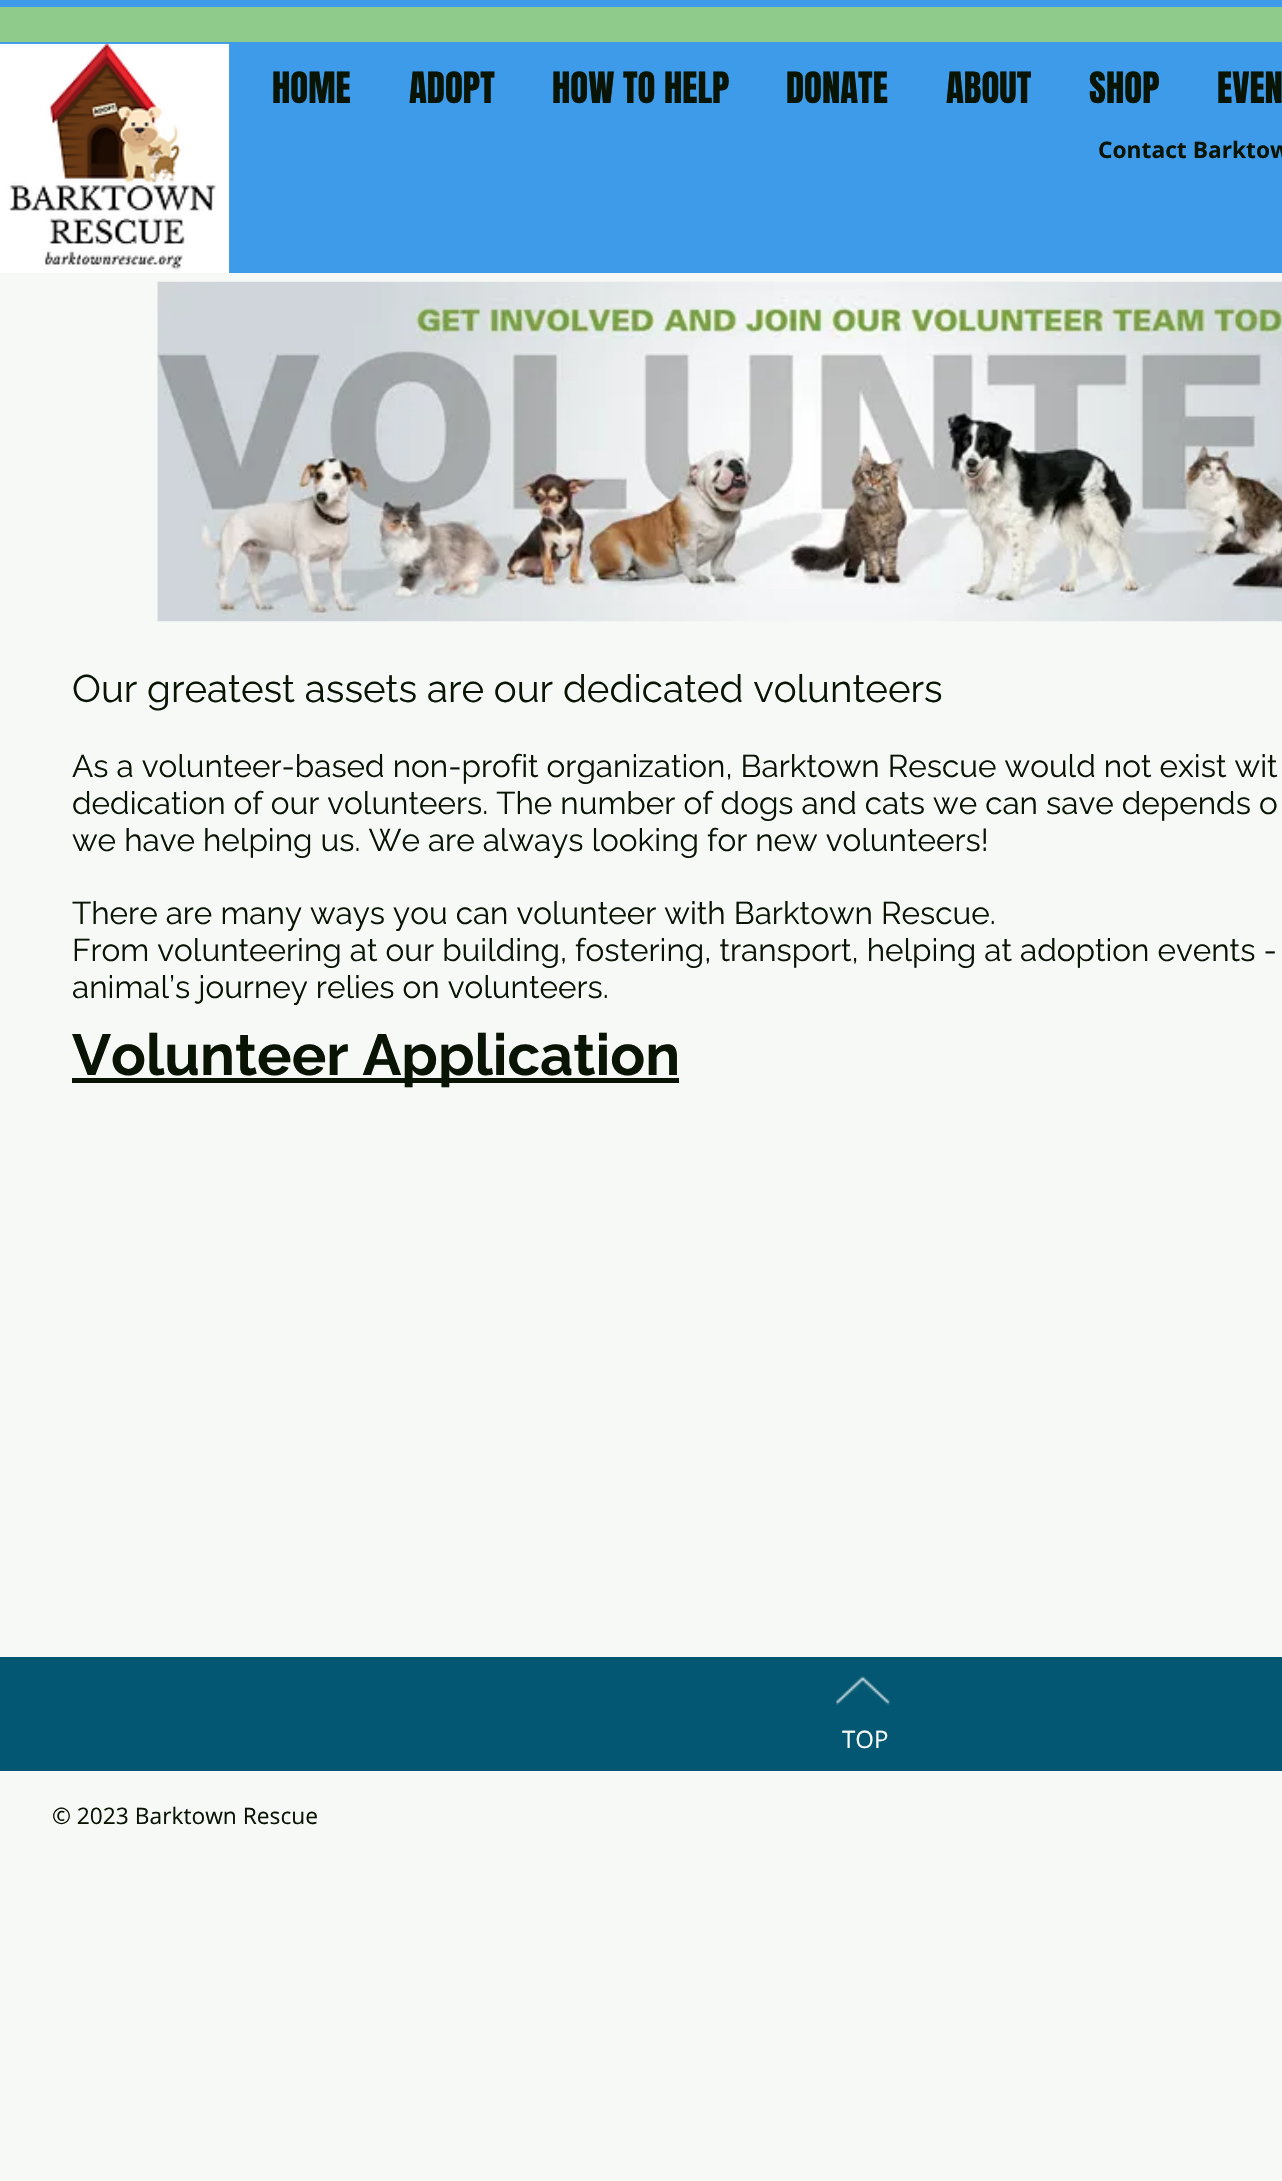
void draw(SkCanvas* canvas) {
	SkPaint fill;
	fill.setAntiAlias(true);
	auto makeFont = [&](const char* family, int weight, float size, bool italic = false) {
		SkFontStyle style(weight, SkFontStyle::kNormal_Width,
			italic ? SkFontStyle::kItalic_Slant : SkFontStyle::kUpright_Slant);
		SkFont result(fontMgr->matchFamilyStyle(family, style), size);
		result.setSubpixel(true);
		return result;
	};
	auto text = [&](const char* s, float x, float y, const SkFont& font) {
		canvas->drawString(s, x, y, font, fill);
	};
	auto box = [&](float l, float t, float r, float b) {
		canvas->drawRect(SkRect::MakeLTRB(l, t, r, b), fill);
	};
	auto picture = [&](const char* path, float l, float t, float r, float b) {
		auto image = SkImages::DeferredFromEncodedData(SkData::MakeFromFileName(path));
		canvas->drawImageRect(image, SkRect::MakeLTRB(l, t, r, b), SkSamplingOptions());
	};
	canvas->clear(0xFFF6F9F5);
	fill.setColor(0xFF3D9BE9);
	box(0, 0, 1282, 273);
	fill.setColor(0xFF8FCC8B);
	box(0, 7, 1282, 42);
	picture("image0.png", 0, 43, 230, 273);
	picture("image1.png", 157, 281, 1282, 622);
	fill.setColor(0xFF091405);
	box(72, 1078, 679, 1083);
	fill.setColor(0xFF035772);
	box(0, 1657, 1282, 1771);
	picture("image2.png", 836, 1676, 890, 1705);
	auto font1 = makeFont("Anton", 400, 36.75f);
	fill.setColor(0xFF091405);
	text("HOME", 272, 103, font1);
	text("ADOPT", 409, 103, font1);
	text("HOW TO HELP", 552, 103, font1);
	text("DONATE", 786, 103, font1);
	text("ABOUT", 946, 103, font1);
	text("SHOP", 1089, 103, font1);
	text("EVEN", 1217, 103, font1);
	auto font2 = makeFont("Open Sans", 700, 22.75f);
	text("Contact Barktow", 1098, 158, font2);
	auto font3 = makeFont("Raleway", 400, 38.5f);
	text("Our greatest assets are our dedicated volunteers", 72, 702, font3);
	auto font4 = makeFont("Raleway", 400, 31.5f);
	text("As a volunteer-based non-profit organization, Barktown Rescue would not exist wit", 72, 777, font4);
	text("dedication of our volunteers. The number of dogs and cats we can save depends o", 72, 814, font4);
	text("we have helping us. We are always looking for new volunteers!", 72, 851, font4);
	text("There are many ways you can volunteer with Barktown Rescue.", 72, 924, font4);
	text("From volunteering at our building, fostering, transport, helping at adoption events -", 72, 961, font4);
	text("animal’s journey relies on volunteers.", 72, 998, font4);
	auto font5 = makeFont("Raleway", 700, 57.75f);
	text("Volunteer Application", 72, 1075, font5);
	auto font6 = makeFont("Open Sans", 400, 24);
	fill.setColor(0xFFF6F9F5);
	text("TOP", 842, 1748, font6);
	auto font7 = makeFont("Open Sans", 400, 22.75f);
	fill.setColor(0xFF091405);
	text("© 2023 Barktown Rescue", 52, 1824, font7);
}
